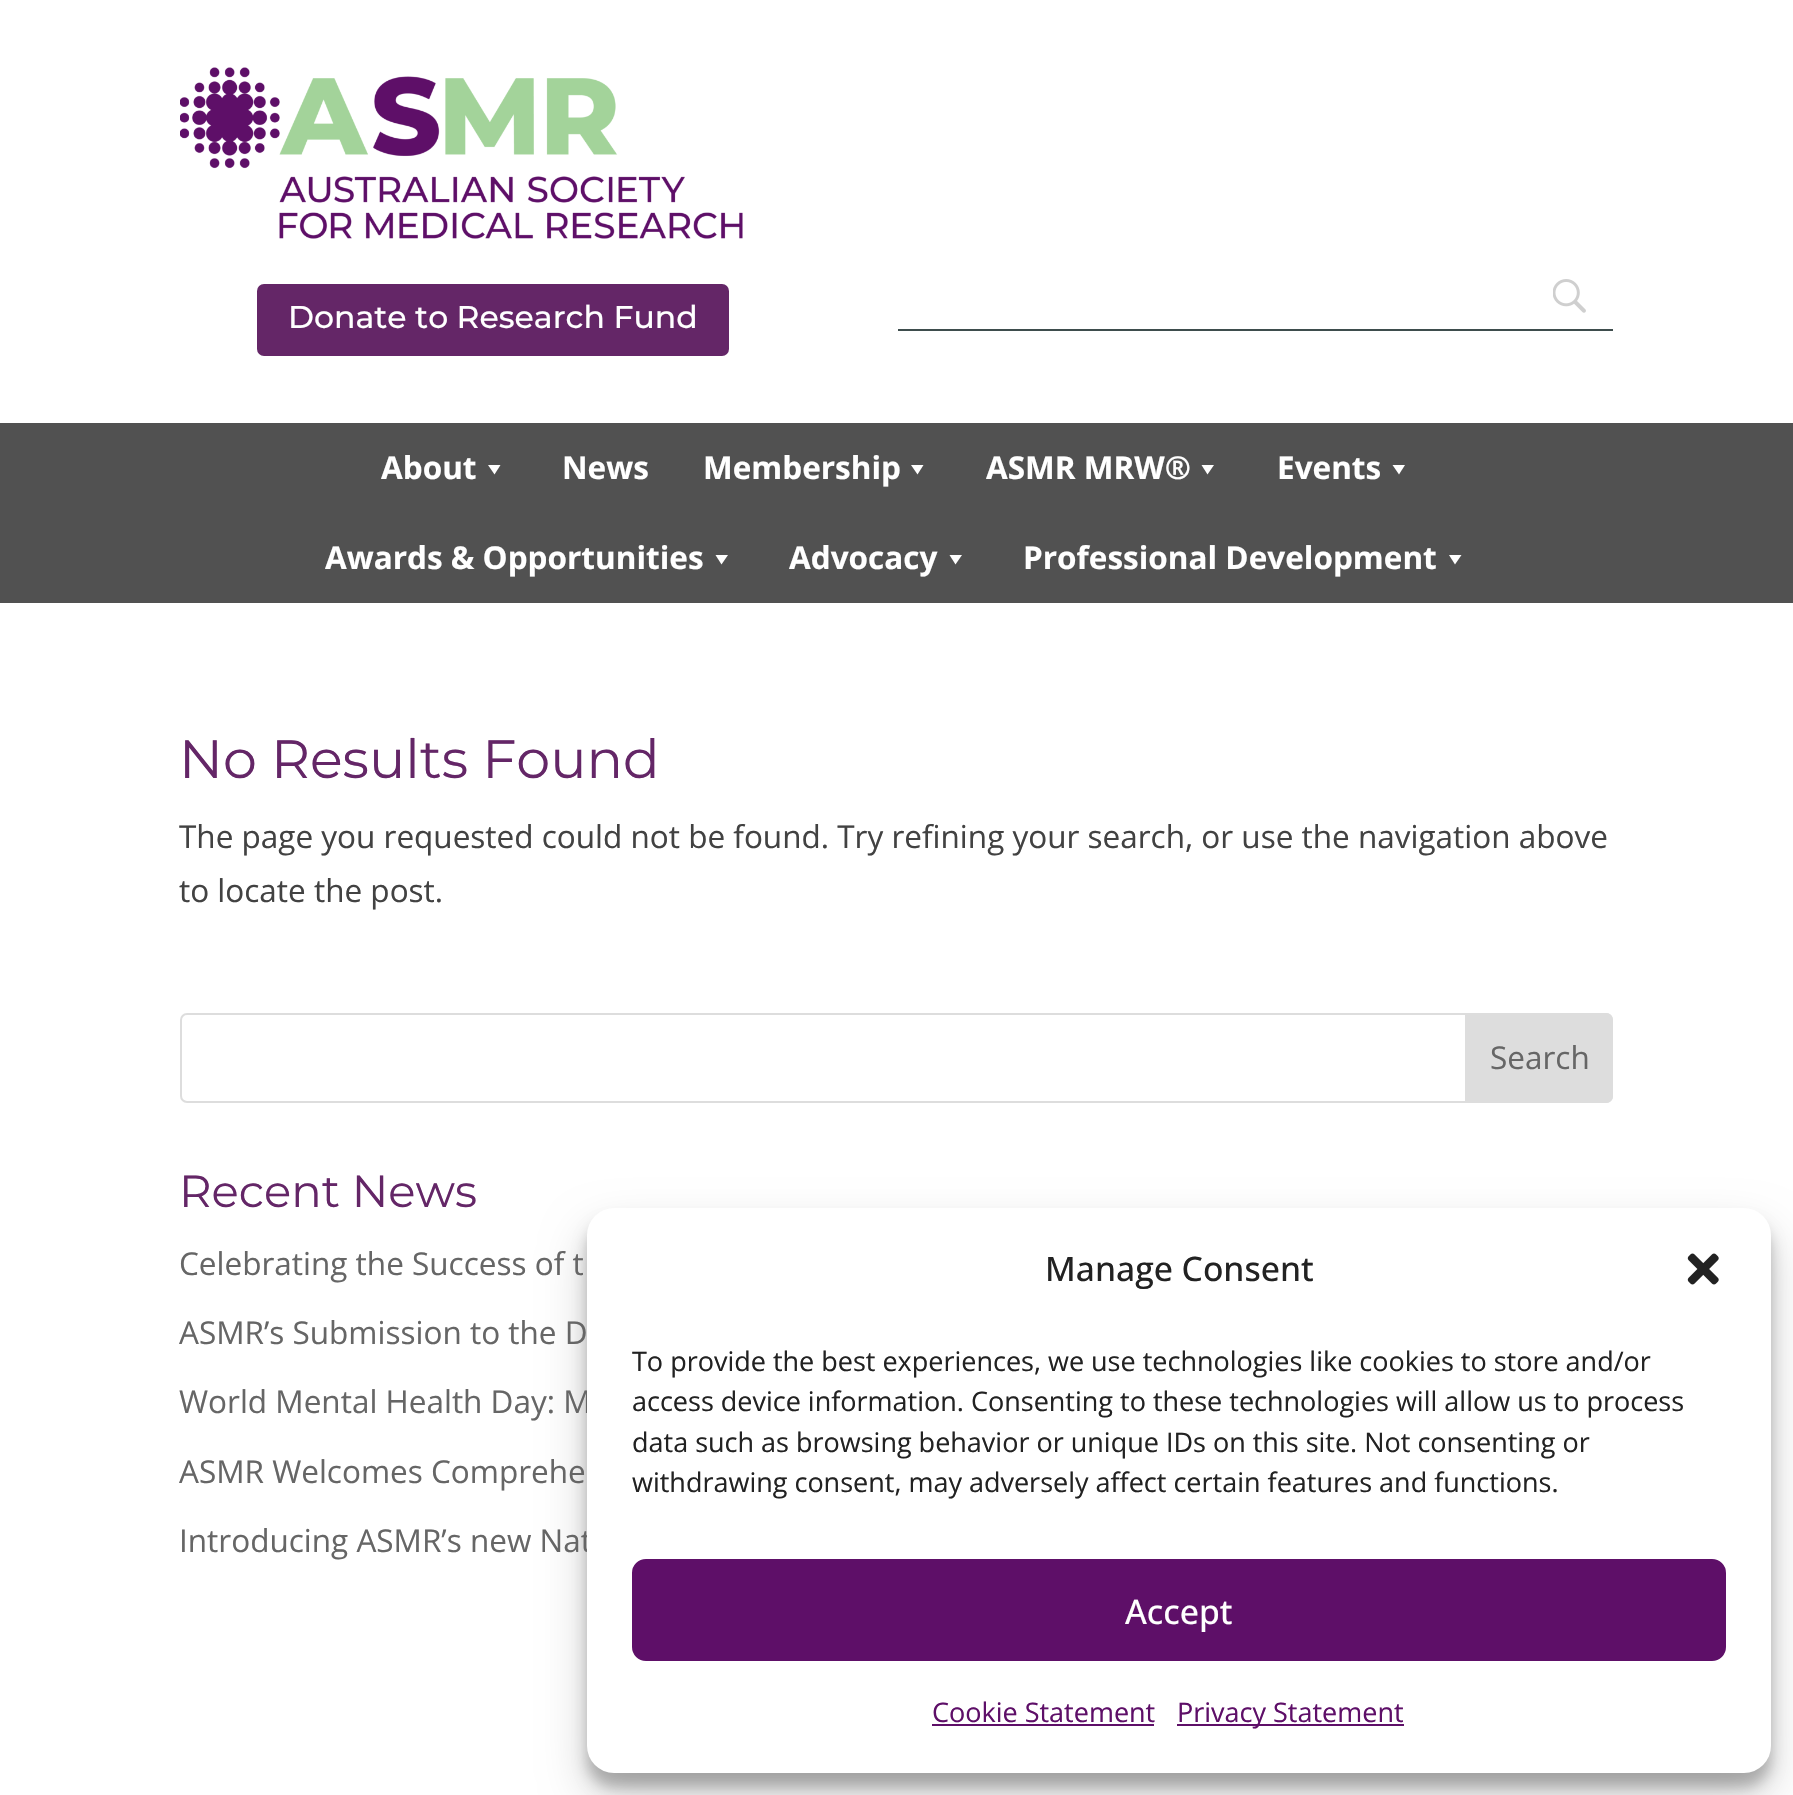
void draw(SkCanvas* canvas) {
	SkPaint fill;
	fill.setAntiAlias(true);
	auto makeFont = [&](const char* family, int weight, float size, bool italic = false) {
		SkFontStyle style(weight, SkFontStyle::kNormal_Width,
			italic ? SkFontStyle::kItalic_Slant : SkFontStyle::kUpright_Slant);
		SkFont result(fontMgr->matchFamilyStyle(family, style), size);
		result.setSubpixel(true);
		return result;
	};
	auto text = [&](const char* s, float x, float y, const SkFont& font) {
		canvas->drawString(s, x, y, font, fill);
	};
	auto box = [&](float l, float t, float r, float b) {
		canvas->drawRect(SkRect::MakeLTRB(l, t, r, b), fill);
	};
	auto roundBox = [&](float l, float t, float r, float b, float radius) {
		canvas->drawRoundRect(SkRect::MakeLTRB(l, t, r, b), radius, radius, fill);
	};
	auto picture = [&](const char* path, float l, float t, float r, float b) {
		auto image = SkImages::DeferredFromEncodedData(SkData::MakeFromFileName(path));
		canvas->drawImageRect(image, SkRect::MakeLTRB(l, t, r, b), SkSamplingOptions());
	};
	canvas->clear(0xFFFFFFFF);
	picture("image0.png", 180, 67, 743, 239);
	fill.setColor(0xFF642667);
	roundBox(257, 284, 729, 356, 7);
	picture("image1.png", 1553, 279, 1586, 313);
	fill.setColor(0xFF3E4D4D);
	box(898, 329, 1613, 331);
	fill.setColor(0xFF515151);
	box(0, 423, 1793, 603);
	fill.setColor(0xFFFFFFFF);
	canvas->drawPath(SkPathBuilder().moveTo(500.5f, 465).lineTo(494.5f, 474.5f).lineTo(488, 465).close().detach(), fill);
	canvas->drawPath(SkPathBuilder().moveTo(923.5f, 465).lineTo(917.5f, 474.5f).lineTo(911, 465).close().detach(), fill);
	canvas->drawPath(SkPathBuilder().moveTo(1214, 465).lineTo(1207.5f, 474.5f).lineTo(1201.5f, 465).close().detach(), fill);
	canvas->drawPath(SkPathBuilder().moveTo(1405, 465).lineTo(1399, 474.5f).lineTo(1392.5f, 465).close().detach(), fill);
	canvas->drawPath(SkPathBuilder().moveTo(728, 555).lineTo(721.5f, 564.5f).lineTo(715.5f, 555).close().detach(), fill);
	canvas->drawPath(SkPathBuilder().moveTo(962, 555).lineTo(955.5f, 564.5f).lineTo(949.5f, 555).close().detach(), fill);
	canvas->drawPath(SkPathBuilder().moveTo(1461.5f, 555).lineTo(1455, 564.5f).lineTo(1449, 555).close().detach(), fill);
	fill.setStyle(SkPaint::kStroke_Style);
	fill.setStrokeWidth(2);
	fill.setColor(0xFFDDDDDD);
	canvas->drawRoundRect(SkRect::MakeLTRB(181, 1014, 1612, 1102), 6, 6, fill);
	fill.setStyle(SkPaint::kFill_Style);
	canvas->drawPath(SkPathBuilder().moveTo(1466, 1014).lineTo(1606, 1014).cubicTo(1609.5f, 1014, 1612, 1016.5f, 1612, 1020).lineTo(1612, 1096).cubicTo(1612, 1099.5f, 1609.5f, 1102, 1606, 1102).lineTo(1466, 1102).close().detach(), fill);
	fill.setStyle(SkPaint::kStroke_Style);
	canvas->drawPath(SkPathBuilder().moveTo(1466, 1014).lineTo(1606, 1014).cubicTo(1609.5f, 1014, 1612, 1016.5f, 1612, 1020).lineTo(1612, 1096).cubicTo(1612, 1099.5f, 1609.5f, 1102, 1606, 1102).lineTo(1466, 1102).close().detach(), fill);
	fill.setStyle(SkPaint::kFill_Style);
	fill.setColor(0x3B000000);
	fill.setMaskFilter(SkMaskFilter::MakeBlur(kNormal_SkBlurStyle, 7));
	canvas->drawRoundRect(SkRect::MakeLTRB(587, 1222, 1771, 1787), 27, 27, fill);
	fill.setMaskFilter(nullptr);
	fill.setColor(0x30000000);
	fill.setMaskFilter(SkMaskFilter::MakeBlur(kNormal_SkBlurStyle, 22.5f));
	canvas->drawRoundRect(SkRect::MakeLTRB(587, 1231, 1771, 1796), 27, 27, fill);
	fill.setMaskFilter(nullptr);
	auto font1 = makeFont("Montserrat", 500, 31.5f);
	fill.setColor(0xFFFFFFFF);
	text("Donate to Research Fund", 288, 328, font1);
	auto font2 = makeFont("Open Sans", 700, 31.5f);
	text("About", 381, 479, font2);
	text("News", 562, 479, font2);
	text("Membership", 703, 479, font2);
	text("ASMR MRW®", 986, 479, font2);
	text("Events", 1277, 479, font2);
	text("Awards & Opportunities", 325, 569, font2);
	text("Advocacy", 789, 569, font2);
	text("Professional Development", 1023, 569, font2);
	auto font3 = makeFont("Montserrat", 400, 54);
	fill.setColor(0xFF642667);
	text("No Results Found", 179, 778, font3);
	auto font4 = makeFont("Open Sans", 400, 31.5f);
	fill.setColor(0xFF424242);
	text("The page you requested could not be found. Try refining your search, or use the navigation above", 179, 848, font4);
	text("to locate the post.", 179, 902, font4);
	fill.setColor(0xFF666666);
	text("Search", 1490, 1069, font4);
	auto font5 = makeFont("Montserrat", 400, 45);
	fill.setColor(0xFF642667);
	text("Recent News", 179, 1207, font5);
	fill.setColor(0xFF666666);
	text("Celebrating the Success of t", 179, 1275, font4);
	text("ASMR’s Submission to the D", 179, 1344, font4);
	text("World Mental Health Day: M", 179, 1413, font4);
	text("ASMR Welcomes Comprehe", 179, 1483, font4);
	text("Introducing ASMR’s new Nat", 179, 1552, font4);
	fill.setColor(0xFFFFFFFF);
	roundBox(587, 1208, 1771, 1773, 27);
	auto font6 = makeFont("Open Sans", 500, 33.75f);
	fill.setColor(0xFF222222);
	text("Manage Consent", 1045, 1281, font6);
	picture("image2.png", 1687, 1253, 1719, 1285);
	auto font7 = makeFont("Open Sans", 400, 27);
	text("To provide the best experiences, we use technologies like cookies to store and/or", 632, 1371, font7);
	text("access device information. Consenting to these technologies will allow us to process", 632, 1411, font7);
	text("data such as browsing behavior or unique IDs on this site. Not consenting or", 632, 1452, font7);
	text("withdrawing consent, may adversely affect certain features and functions.", 632, 1492, font7);
	fill.setColor(0xFF5E0F68);
	canvas->drawRoundRect(SkRect::MakeLTRB(633, 1560, 1725, 1660), 13, 13, fill);
	fill.setStyle(SkPaint::kStroke_Style);
	canvas->drawRoundRect(SkRect::MakeLTRB(633, 1560, 1725, 1660), 13, 13, fill);
	fill.setStyle(SkPaint::kFill_Style);
	fill.setColor(0xFFFFFFFF);
	text("Accept", 1125, 1624, font6);
	fill.setColor(0xFF5E0F68);
	text("Cookie Statement", 932, 1722, font7);
	box(932, 1724, 1154, 1726);
	box(1177, 1724, 1404, 1726);
	text("Privacy Statement", 1177, 1722, font7);
}
